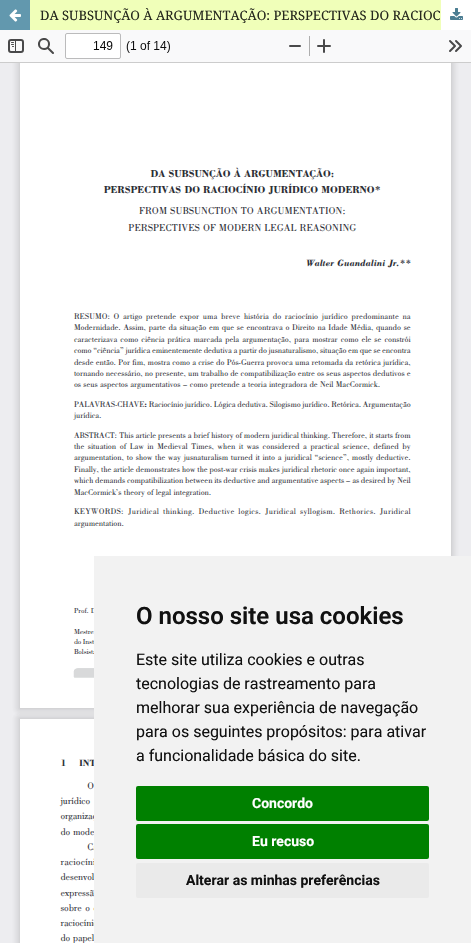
void draw(SkCanvas* canvas) {
	SkPaint fill;
	fill.setAntiAlias(true);
	auto makeFont = [&](const char* family, int weight, float size, bool italic = false) {
		SkFontStyle style(weight, SkFontStyle::kNormal_Width,
			italic ? SkFontStyle::kItalic_Slant : SkFontStyle::kUpright_Slant);
		SkFont result(fontMgr->matchFamilyStyle(family, style), size);
		result.setSubpixel(true);
		return result;
	};
	auto text = [&](const char* s, float x, float y, const SkFont& font) {
		canvas->drawString(s, x, y, font, fill);
	};
	auto box = [&](float l, float t, float r, float b) {
		canvas->drawRect(SkRect::MakeLTRB(l, t, r, b), fill);
	};
	auto roundBox = [&](float l, float t, float r, float b, float radius) {
		canvas->drawRoundRect(SkRect::MakeLTRB(l, t, r, b), radius, radius, fill);
	};
	auto picture = [&](const char* path, float l, float t, float r, float b) {
		auto image = SkImages::DeferredFromEncodedData(SkData::MakeFromFileName(path));
		canvas->drawImageRect(image, SkRect::MakeLTRB(l, t, r, b), SkSamplingOptions());
	};
	canvas->clear(0xFFFFFFFF);
	fill.setColor(0xFFF0FFB9);
	box(30, 0, 441, 30);
	fill.setColor(0xFF6298AE);
	box(0, 0, 30, 30);
	picture("image0.png", 9, 9, 21, 22);
	picture("image1.png", 450, 8, 463, 20);
	picture("image2.png", 0, 30, 471, 943);
	fill.setColor(0xFFF2F2F2);
	box(94, 556, 471, 943);
	fill.setColor(0xFF008000);
	roundBox(136, 786, 429, 821, 2);
	roundBox(136, 824, 429, 859, 2);
	fill.setColor(0xFFEAEAEA);
	roundBox(136, 863, 429, 898, 2);
	auto font1 = makeFont("Noto Serif", 400, 13);
	fill.setColor(0xFF26291E);
	text("DA SUBSUNÇÃO À ARGUMENTAÇÃO: PERSPECTIVAS DO RACIOC", 40, 20, font1);
	auto font2 = makeFont("Roboto", 600, 24);
	fill.setColor(0xFF111111);
	text("O nosso site usa cookies", 136, 624, font2);
	auto font3 = makeFont("Roboto", 400, 16);
	text("Este site utiliza cookies e outras", 136, 665, font3);
	text("tecnologias de rastreamento para", 136, 689, font3);
	text("melhorar sua experiência de navegação", 136, 713, font3);
	text("para os seguintes propósitos: para ativar", 136, 737, font3);
	text("a funcionalidade básica do site.", 136, 761, font3);
	auto font4 = makeFont("Roboto", 700, 14);
	fill.setColor(0xFFFFFFFF);
	text("Concordo", 252, 808, font4);
	text("Eu recuso", 252, 846, font4);
	fill.setColor(0xFF111111);
	text("Alterar as minhas preferências", 186, 885, font4);
}
